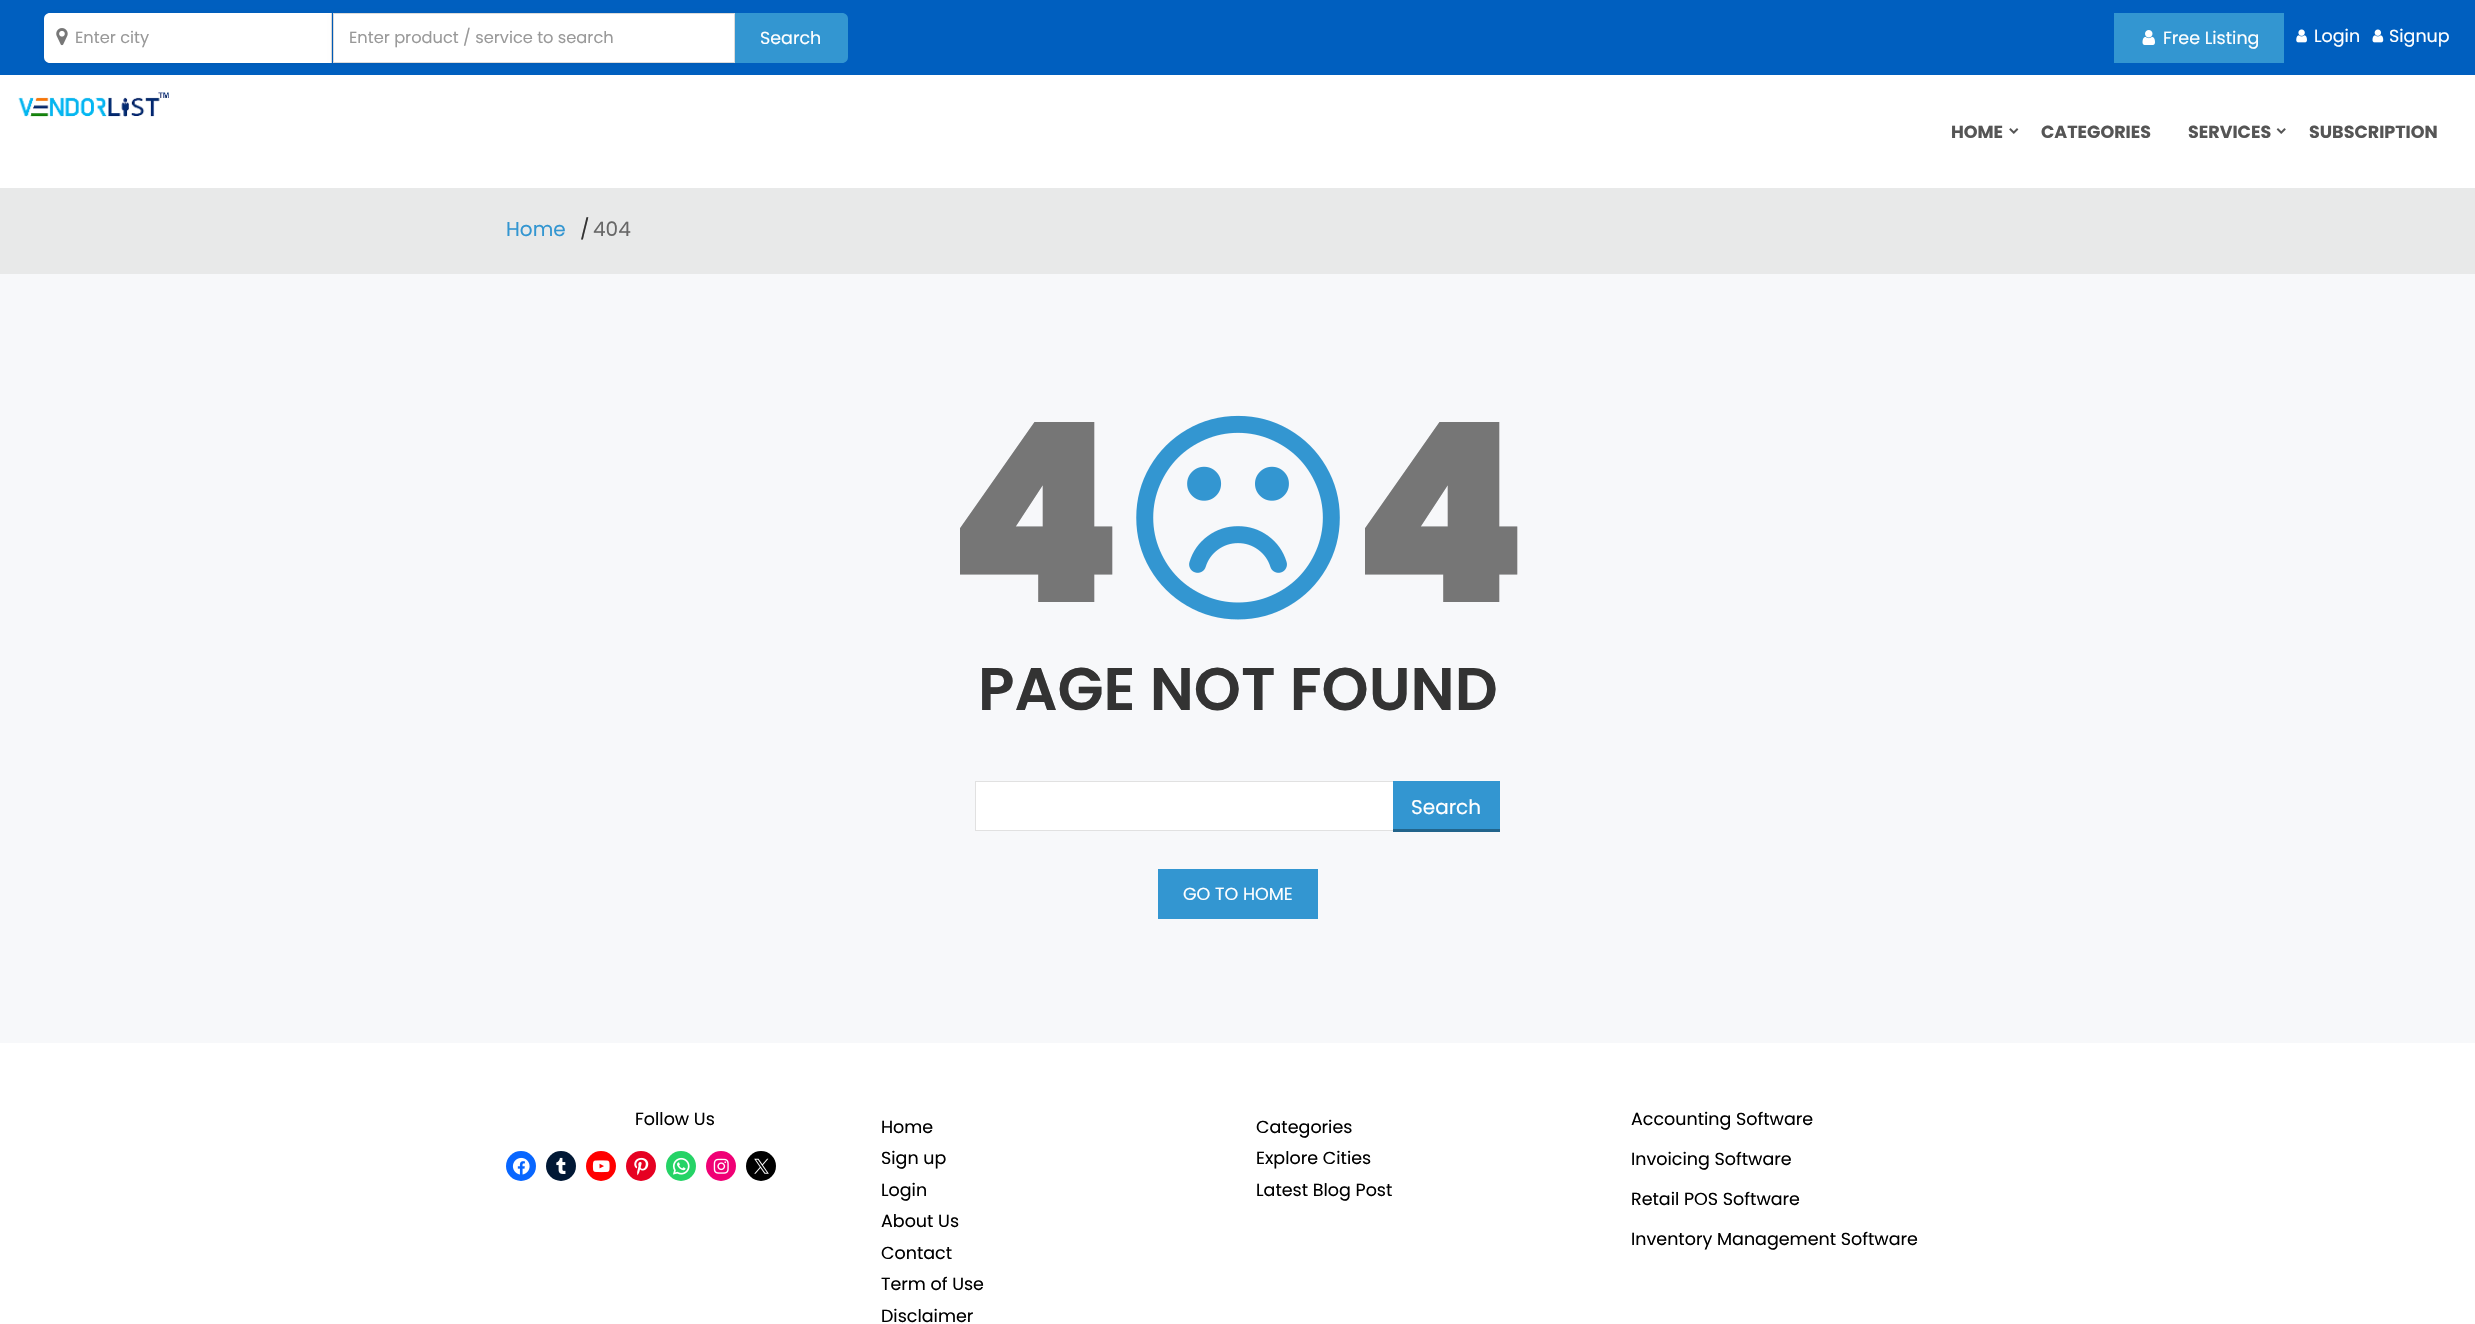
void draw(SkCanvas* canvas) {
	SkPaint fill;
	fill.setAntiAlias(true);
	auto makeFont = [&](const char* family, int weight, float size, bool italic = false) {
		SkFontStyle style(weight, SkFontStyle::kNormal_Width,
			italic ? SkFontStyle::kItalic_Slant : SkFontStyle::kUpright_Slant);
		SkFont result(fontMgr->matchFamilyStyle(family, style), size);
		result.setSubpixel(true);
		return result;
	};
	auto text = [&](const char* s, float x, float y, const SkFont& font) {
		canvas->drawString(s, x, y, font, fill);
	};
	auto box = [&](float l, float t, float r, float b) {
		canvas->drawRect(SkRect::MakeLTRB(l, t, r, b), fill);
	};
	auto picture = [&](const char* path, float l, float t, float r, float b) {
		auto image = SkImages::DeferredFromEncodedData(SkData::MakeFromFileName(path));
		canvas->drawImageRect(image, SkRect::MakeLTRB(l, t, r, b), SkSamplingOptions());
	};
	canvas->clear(0xFFF7F8FA);
	fill.setColor(0xFFFFFFFF);
	box(0, 75, 2475, 188);
	fill.setColor(0xFF005FBF);
	box(0, 0, 2475, 75);
	fill.setColor(0xFFDDDDDD);
	box(331, 13, 332, 63);
	fill.setColor(0x0F000000);
	fill.setMaskFilter(SkMaskFilter::MakeBlur(kNormal_SkBlurStyle, 2));
	canvas->drawRoundRect(SkRect::MakeLTRB(44, 14, 331, 64), 6, 6, fill);
	fill.setMaskFilter(nullptr);
	fill.setColor(0xFFFFFFFF);
	canvas->drawPath(SkPathBuilder().moveTo(50, 13).lineTo(331, 13).lineTo(331, 63).lineTo(50, 63).cubicTo(46.5f, 63, 44, 60.5f, 44, 57).lineTo(44, 19).cubicTo(44, 15.5f, 46.5f, 13, 50, 13).close().detach(), fill);
	picture("image0.png", 56, 28, 68, 46);
	fill.setColor(0x0F000000);
	fill.setMaskFilter(SkMaskFilter::MakeBlur(kNormal_SkBlurStyle, 2));
	canvas->drawRect(SkRect::MakeLTRB(333, 14, 735, 64), fill);
	fill.setMaskFilter(nullptr);
	fill.setColor(0xFFFFFFFF);
	canvas->drawRect(SkRect::MakeLTRB(333.5f, 13.5f, 734.5f, 62.5f), fill);
	fill.setStyle(SkPaint::kStroke_Style);
	fill.setStrokeWidth(1);
	fill.setColor(0xFFDBDBDB);
	canvas->drawRect(SkRect::MakeLTRB(333.5f, 13.5f, 734.5f, 62.5f), fill);
	fill.setStyle(SkPaint::kFill_Style);
	fill.setColor(0xFF3396D1);
	canvas->drawPath(SkPathBuilder().moveTo(735, 13).lineTo(842, 13).cubicTo(845.5f, 13, 848, 15.5f, 848, 19).lineTo(848, 57).cubicTo(848, 60.5f, 845.5f, 63, 842, 63).lineTo(735, 63).close().detach(), fill);
	box(2114, 13, 2284, 63);
	picture("image1.png", 2142, 30, 2155, 45);
	picture("image2.png", 2296, 29, 2307, 43);
	picture("image3.png", 2372, 29, 2384, 43);
	picture("image4.png", 18, 92, 169, 117);
	picture("image5.png", 2009, 128, 2019, 134);
	picture("image6.png", 2276, 128, 2286, 134);
	fill.setColor(0xFFE8E9E9);
	box(0, 188, 2475, 274);
	picture("image7.png", 1136, 415, 1340, 620);
	fill.setColor(0xFFFFFFFF);
	box(976, 782, 1393, 830);
	fill.setStyle(SkPaint::kStroke_Style);
	fill.setColor(0xFFE1E1E1);
	canvas->drawRect(SkRect::MakeLTRB(975.5f, 781.5f, 1499.5f, 830.5f), fill);
	fill.setStyle(SkPaint::kFill_Style);
	fill.setColor(0xFF3396D1);
	box(1393, 781, 1500, 829);
	fill.setColor(0xFF22648B);
	box(1393, 829, 1500, 832);
	fill.setColor(0xFF3396D1);
	box(1158, 869, 1318, 919);
	fill.setColor(0xFFFFFFFF);
	box(0, 1043, 2475, 1324);
	fill.setColor(0xFF0866FF);
	canvas->drawCircle(521, 1166, 15, fill);
	picture("image8.png", 512, 1157, 530, 1175);
	fill.setColor(0xFF011835);
	canvas->drawCircle(561, 1166, 15, fill);
	picture("image9.png", 556, 1157, 566, 1174);
	fill.setColor(0xFFFF0000);
	canvas->drawCircle(601, 1166, 15, fill);
	picture("image10.png", 592, 1160, 610, 1173);
	fill.setColor(0xFFE60122);
	canvas->drawCircle(641, 1166, 15, fill);
	picture("image11.png", 634, 1157, 649, 1176);
	fill.setColor(0xFF25D366);
	canvas->drawCircle(681, 1166, 15, fill);
	picture("image12.png", 672, 1157, 690, 1175);
	fill.setColor(0xFFF00075);
	canvas->drawCircle(721, 1166, 15, fill);
	picture("image13.png", 713, 1158, 729, 1174);
	fill.setColor(0xFF000000);
	canvas->drawCircle(761, 1166, 15, fill);
	picture("image14.png", 754, 1158, 769, 1174);
	auto font1 = makeFont("Poppins", 400, 16.25f);
	fill.setColor(0xFF999999);
	text("Enter city", 75, 43, font1);
	text("Enter product / service to search", 349, 43, font1);
	auto font2 = makeFont("Poppins", 400, 17.5f);
	fill.setColor(0xFFFFFFFF);
	text("Search", 760, 44, font2);
	text("Free Listing", 2163, 44, font2);
	text("Login", 2314, 42, font2);
	text("Signup", 2389, 42, font2);
	auto font3 = makeFont("Poppins", 700, 17.5f);
	fill.setColor(0xFF555555);
	text("HOME", 1951, 138, font3);
	text("CATEGORIES", 2041, 138, font3);
	text("SERVICES", 2188, 138, font3);
	text("SUBSCRIPTION", 2309, 138, font3);
	auto font4 = makeFont("Poppins", 400, 20);
	fill.setColor(0xFF3396D1);
	text("Home", 506, 236, font4);
	fill.setColor(0xFF333333);
	text("/", 580, 236, font4);
	fill.setColor(0xFF676767);
	text("404", 593, 236, font4);
	auto font5 = makeFont("Poppins", 900, 250);
	fill.setColor(0xFF767676);
	text("4", 947, 602, font5);
	text("4", 1352, 602, font5);
	auto font6 = makeFont("Poppins", 600, 60);
	fill.setColor(0xFF333333);
	text("PAGE NOT FOUND", 978, 710, font6);
	fill.setColor(0xFFFFFFFF);
	text("Search", 1411, 814, font4);
	text("GO TO HOME", 1183, 900, font2);
	fill.setColor(0xFF000000);
	text("Follow Us", 635, 1125, font2);
	text("Home", 881, 1133, font2);
	text("Sign up", 881, 1164, font2);
	text("Login", 881, 1196, font2);
	text("About Us", 881, 1227, font2);
	text("Contact", 881, 1259, font2);
	text("Term of Use", 881, 1290, font2);
	text("Disclaimer", 881, 1322, font2);
	text("Categories", 1256, 1133, font2);
	text("Explore Cities", 1256, 1164, font2);
	text("Latest Blog Post", 1256, 1196, font2);
	text("Accounting Software", 1631, 1125, font2);
	text("Invoicing Software", 1631, 1165, font2);
	text("Retail POS Software", 1631, 1205, font2);
	text("Inventory Management Software", 1631, 1245, font2);
}
